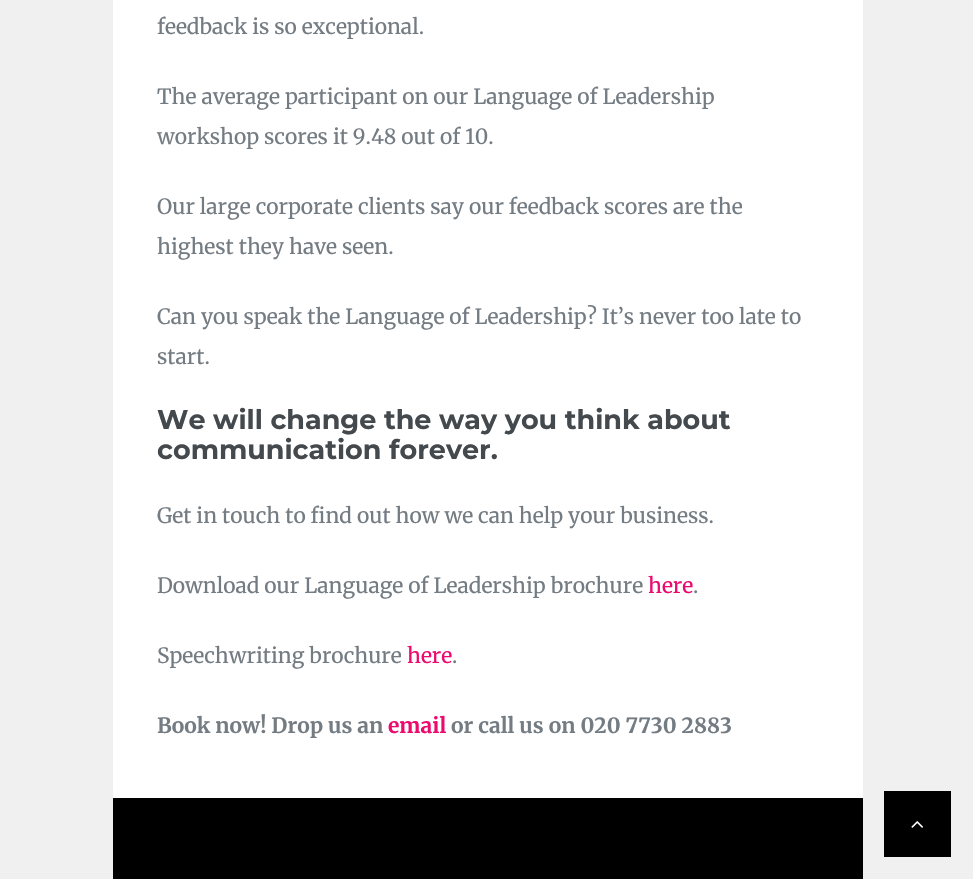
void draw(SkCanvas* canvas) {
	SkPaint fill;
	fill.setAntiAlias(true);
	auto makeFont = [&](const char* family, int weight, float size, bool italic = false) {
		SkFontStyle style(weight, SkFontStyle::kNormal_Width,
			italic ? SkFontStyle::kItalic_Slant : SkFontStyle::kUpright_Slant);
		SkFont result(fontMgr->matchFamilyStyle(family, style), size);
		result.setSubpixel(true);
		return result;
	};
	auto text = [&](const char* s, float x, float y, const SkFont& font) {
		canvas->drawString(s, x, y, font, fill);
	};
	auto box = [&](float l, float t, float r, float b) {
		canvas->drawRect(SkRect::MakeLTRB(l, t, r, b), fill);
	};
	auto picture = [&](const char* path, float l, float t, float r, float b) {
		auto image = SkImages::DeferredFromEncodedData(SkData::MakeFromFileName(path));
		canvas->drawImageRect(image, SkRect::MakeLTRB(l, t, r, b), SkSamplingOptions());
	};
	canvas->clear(0xFFF0F0F0);
	fill.setColor(0xFFFFFFFF);
	box(113, 0, 863, 798);
	fill.setColor(0xFF000000);
	box(113, 798, 863, 879);
	box(884, 791, 951, 857);
	picture("image0.png", 911, 821, 923, 828);
	auto font1 = makeFont("Merriweather", 400, 21);
	fill.setColor(0xFF747C83);
	text("feedback is so exceptional.", 157, 34, font1);
	text("The average participant on our Language of Leadership", 157, 104, font1);
	text("workshop scores it 9.48 out of 10.", 157, 144, font1);
	text("Our large corporate clients say our feedback scores are the", 157, 214, font1);
	text("highest they have seen.", 157, 254, font1);
	text("Can you speak the Language of Leadership? It’s never too late to", 157, 324, font1);
	text("start.", 157, 364, font1);
	auto font2 = makeFont("Montserrat", 700, 27);
	fill.setColor(0xFF44494D);
	text("We will change the way you think about", 157, 429, font2);
	text("communication forever.", 157, 459, font2);
	fill.setColor(0xFF747C83);
	text("Get in touch to find out how we can help your business.", 157, 523, font1);
	text("Download our Language of Leadership brochure", 157, 593, font1);
	fill.setColor(0xFFEC0A6F);
	text("here", 648, 593, font1);
	fill.setColor(0xFF747C83);
	text(".", 693, 593, font1);
	text("Speechwriting brochure", 157, 663, font1);
	fill.setColor(0xFFEC0A6F);
	text("here", 407, 663, font1);
	fill.setColor(0xFF747C83);
	text(".", 452, 663, font1);
	auto font3 = makeFont("Merriweather", 700, 21);
	text("Book now! Drop us an", 157, 733, font3);
	fill.setColor(0xFFEC0A6F);
	text("email", 388, 733, font3);
	fill.setColor(0xFF747C83);
	text("or call us on 020 7730 2883", 451, 733, font3);
}
